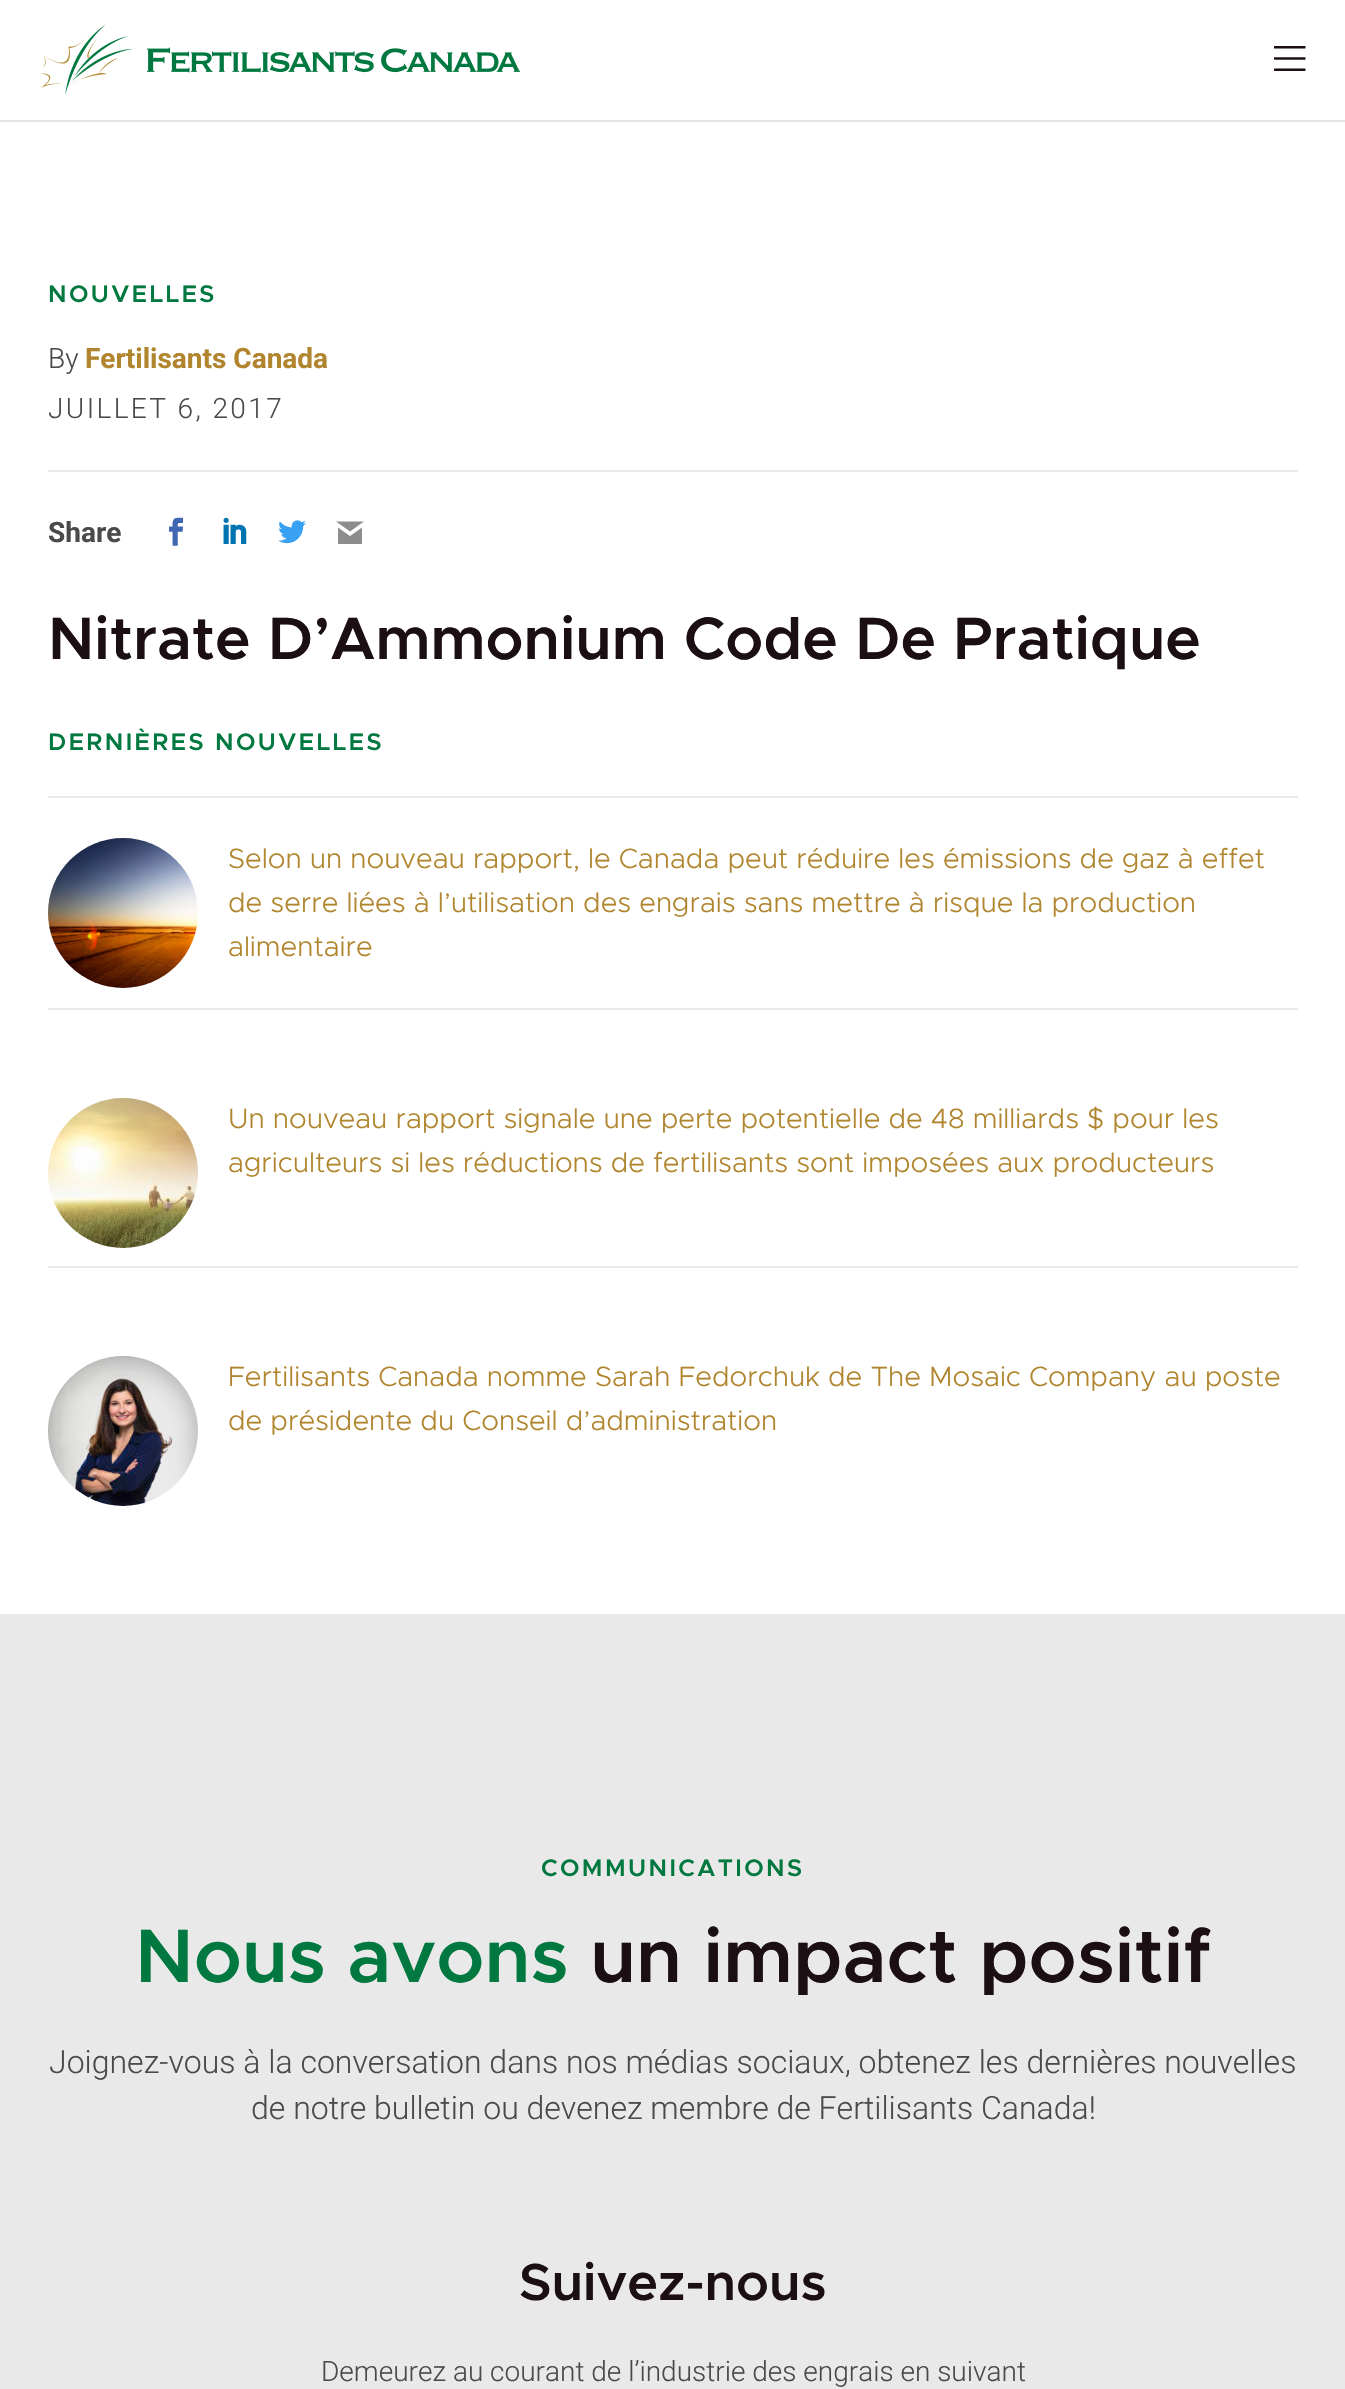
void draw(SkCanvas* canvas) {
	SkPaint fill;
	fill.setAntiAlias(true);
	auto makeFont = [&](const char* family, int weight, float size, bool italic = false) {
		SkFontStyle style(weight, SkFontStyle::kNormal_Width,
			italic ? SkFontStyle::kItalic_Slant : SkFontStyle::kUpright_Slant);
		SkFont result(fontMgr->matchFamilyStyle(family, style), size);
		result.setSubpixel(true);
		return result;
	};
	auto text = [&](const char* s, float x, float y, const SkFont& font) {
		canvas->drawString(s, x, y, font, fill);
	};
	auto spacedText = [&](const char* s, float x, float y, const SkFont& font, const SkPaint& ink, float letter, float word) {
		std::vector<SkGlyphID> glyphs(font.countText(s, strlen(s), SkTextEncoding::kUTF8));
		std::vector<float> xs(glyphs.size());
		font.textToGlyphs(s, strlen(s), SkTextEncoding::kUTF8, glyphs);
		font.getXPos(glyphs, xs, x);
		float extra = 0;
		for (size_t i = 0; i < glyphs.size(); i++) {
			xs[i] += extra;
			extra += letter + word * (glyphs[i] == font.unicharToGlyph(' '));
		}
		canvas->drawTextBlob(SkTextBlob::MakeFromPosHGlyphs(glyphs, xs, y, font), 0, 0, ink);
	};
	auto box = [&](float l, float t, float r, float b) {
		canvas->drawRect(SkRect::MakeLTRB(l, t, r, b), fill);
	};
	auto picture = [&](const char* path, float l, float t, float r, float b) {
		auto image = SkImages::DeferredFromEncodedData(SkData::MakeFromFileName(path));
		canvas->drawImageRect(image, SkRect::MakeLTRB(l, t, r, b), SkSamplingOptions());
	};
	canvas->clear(0xFFFFFFFF);
	fill.setColor(0xFFE4E4E4);
	box(0, 120, 1345, 122);
	picture("image0.png", 40, 24, 520, 95);
	picture("image1.png", 1274, 46, 1306, 71);
	fill.setColor(0xFFE9E9E9);
	box(48, 470, 1298, 472);
	picture("image2.png", 169, 517, 184, 546);
	picture("image3.png", 223, 517, 247, 544);
	picture("image4.png", 278, 520, 306, 544);
	fill.setColor(0xFF8D8D8D);
	canvas->drawPath(SkPathBuilder().moveTo(364, 521.5f).lineTo(336, 521.5f).lineTo(350, 531.5f).close().moveTo(350, 536).lineTo(338, 527.5f).lineTo(338, 544).lineTo(362, 544).lineTo(362, 527.5f).close().detach(), fill);
	fill.setColor(0xFFE9E9E9);
	box(48, 796, 1298, 798);
	picture("image5.png", 48, 838, 198, 988);
	box(48, 1008, 1298, 1010);
	picture("image6.png", 48, 1098, 198, 1248);
	box(48, 1266, 1298, 1268);
	picture("image7.png", 48, 1356, 198, 1506);
	box(0, 1614, 1345, 2389);
	auto font1 = makeFont("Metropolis", 600, 24);
	fill.setColor(0xFF00783F);
	spacedText("NOUVELLES", 48, 302, font1, fill, 2.4f, 0);
	auto font2 = makeFont("Roboto", 300, 28);
	fill.setColor(0xFF4A4A4A);
	text("By", 48, 368, font2);
	auto font3 = makeFont("Roboto", 700, 28);
	fill.setColor(0xFFB0852D);
	text("Fertilisants Canada", 85, 368, font3);
	fill.setColor(0xFF4A4A4A);
	spacedText("JUILLET 6, 2017", 48, 418, font2, fill, 2.4f, 0);
	text("Share", 48, 542, font3);
	auto font4 = makeFont("Metropolis", 600, 60);
	fill.setColor(0xFF1C0F13);
	text("Nitrate D’Ammonium Code De Pratique", 48, 659, font4);
	fill.setColor(0xFF00783F);
	spacedText("DERNIÈRES NOUVELLES", 48, 750, font1, fill, 2.4f, 0);
	auto font5 = makeFont("Metropolis", 300, 28);
	fill.setColor(0xFFB0852D);
	text("Selon un nouveau rapport, le Canada peut réduire les émissions de gaz à effet", 228, 868, font5);
	text("de serre liées à l’utilisation des engrais sans mettre à risque la production", 228, 912, font5);
	text("alimentaire", 228, 956, font5);
	text("Un nouveau rapport signale une perte potentielle de 48 milliards $ pour les", 228, 1128, font5);
	text("agriculteurs si les réductions de fertilisants sont imposées aux producteurs", 228, 1172, font5);
	text("Fertilisants Canada nomme Sarah Fedorchuk de The Mosaic Company au poste", 228, 1386, font5);
	text("de présidente du Conseil d’administration", 228, 1430, font5);
	fill.setColor(0xFF00783F);
	spacedText("COMMUNICATIONS", 541, 1876, font1, fill, 2.4f, 0);
	auto font6 = makeFont("Metropolis", 600, 76);
	text("Nous avons", 135, 1982, font6);
	fill.setColor(0xFF1C0F13);
	text("un impact positif", 590, 1982, font6);
	auto font7 = makeFont("Roboto", 300, 32);
	fill.setColor(0xFF4A4A4A);
	text("Joignez-vous à la conversation dans nos médias sociaux, obtenez les dernières nouvelles", 49, 2073, font7);
	text("de notre bulletin ou devenez membre de Fertilisants Canada!", 251, 2119, font7);
	auto font8 = makeFont("Metropolis", 600, 52);
	fill.setColor(0xFF1C0F13);
	text("Suivez-nous", 519, 2300, font8);
	fill.setColor(0xFF4A4A4A);
	text("Demeurez au courant de l’industrie des engrais en suivant", 321, 2381, font2);
}
